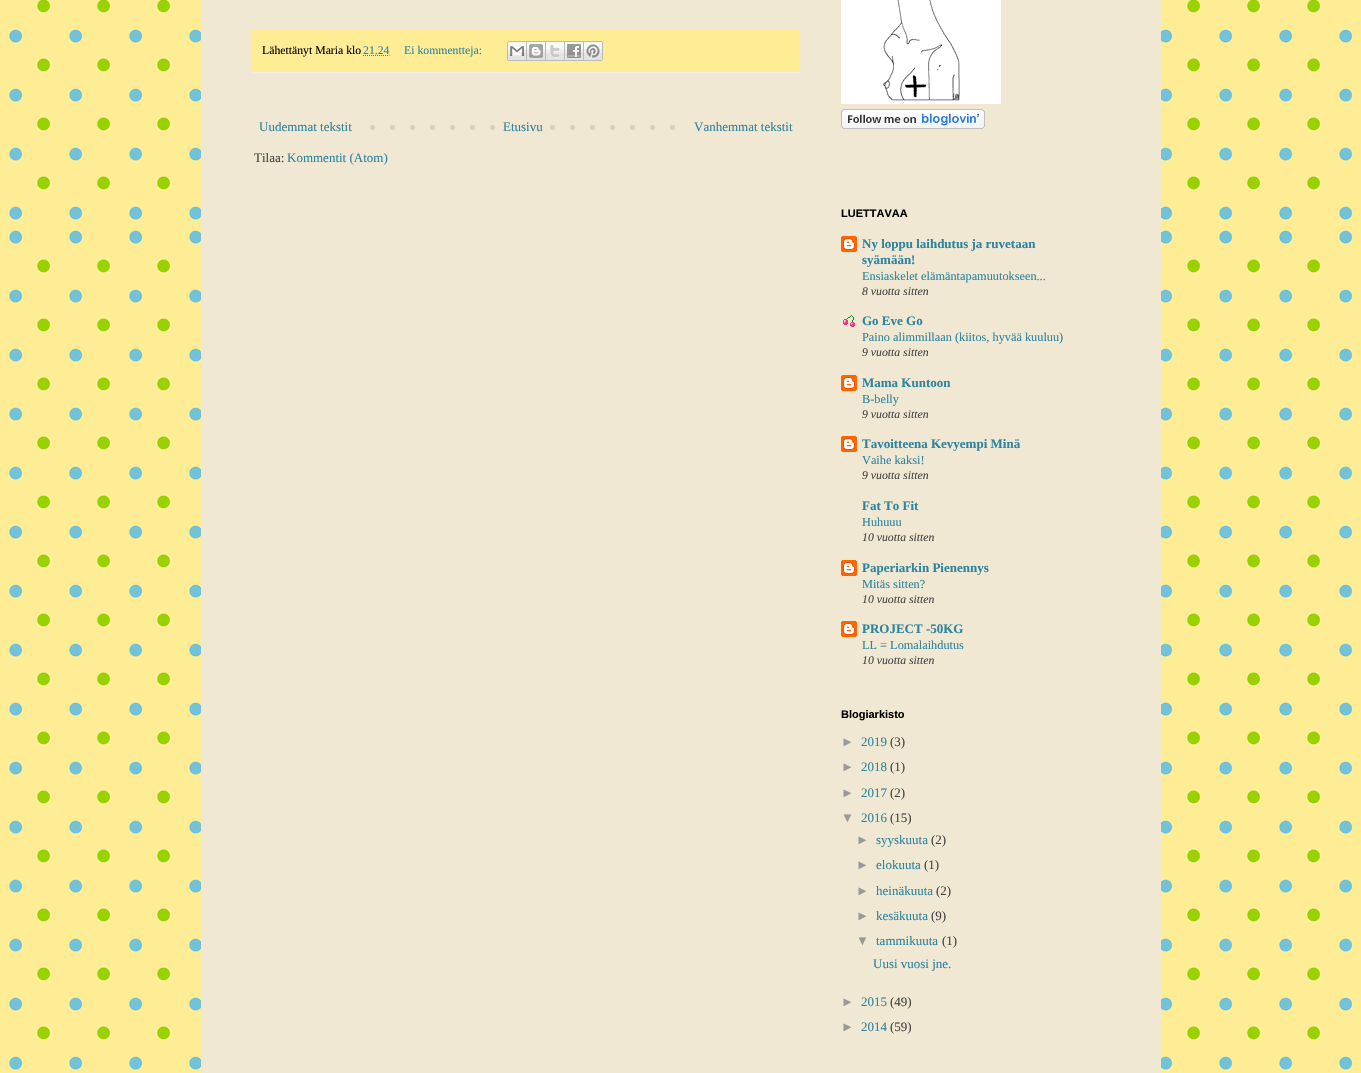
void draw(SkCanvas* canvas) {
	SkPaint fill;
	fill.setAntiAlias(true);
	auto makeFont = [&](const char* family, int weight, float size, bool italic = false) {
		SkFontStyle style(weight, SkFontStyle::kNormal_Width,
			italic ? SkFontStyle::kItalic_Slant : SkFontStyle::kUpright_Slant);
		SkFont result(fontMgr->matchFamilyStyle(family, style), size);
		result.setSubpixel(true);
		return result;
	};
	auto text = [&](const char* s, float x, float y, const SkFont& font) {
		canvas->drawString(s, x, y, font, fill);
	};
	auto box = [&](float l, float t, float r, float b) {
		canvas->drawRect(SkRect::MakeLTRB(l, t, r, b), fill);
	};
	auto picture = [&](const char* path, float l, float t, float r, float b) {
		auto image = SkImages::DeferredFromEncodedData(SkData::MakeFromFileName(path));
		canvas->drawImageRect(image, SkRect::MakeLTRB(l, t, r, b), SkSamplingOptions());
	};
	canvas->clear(0xFFFFFFFF);
	picture("image0.png", 0, 0, 1361, 1073);
	fill.setColor(0xFFF0E8D2);
	box(201, 0, 1161, 1073);
	fill.setColor(0xFFFFED96);
	box(252, 30, 800, 72);
	fill.setColor(0xFFEEEEEE);
	box(252, 72, 800, 73);
	fill.setStyle(SkPaint::kStroke_Style);
	fill.setStrokeWidth(1);
	fill.setColor(0xFF2E849F);
	fill.setPathEffect(SkDashPathEffect::Make({{1, 1}}, 0));
	canvas->drawPath(SkPathBuilder().moveTo(363, 55.5f).lineTo(389.5f, 55.5f).detach(), fill);
	fill.setPathEffect(nullptr);
	picture("image1.png", 507, 41, 527, 61);
	picture("image2.png", 527, 41, 546, 61);
	picture("image3.png", 546, 41, 565, 61);
	picture("image4.png", 565, 41, 584, 61);
	picture("image5.png", 584, 41, 603, 61);
	picture("image6.png", 370, 125, 675, 130);
	fill.setStyle(SkPaint::kFill_Style);
	fill.setColor(0xFFF0E8D2);
	box(510, 125, 536, 130);
	picture("image7.png", 841, 0, 1001, 104);
	picture("image8.png", 841, 109, 985, 129);
	picture("image9.png", 841, 236, 857, 252);
	picture("image10.png", 843, 315, 855, 327);
	picture("image9.png", 841, 375, 857, 391);
	picture("image9.png", 841, 436, 857, 452);
	picture("image9.png", 841, 560, 857, 576);
	picture("image9.png", 841, 621, 857, 637);
	auto font1 = makeFont("Liberation Serif", 400, 11.75f);
	fill.setColor(0xFF000000);
	text("Lähettänyt Maria klo", 262, 54, font1);
	fill.setColor(0xFF2E849F);
	text("21.24", 363, 54, font1);
	text("Ei kommentteja:", 404, 54, font1);
	auto font2 = makeFont("Liberation Serif", 400, 13);
	text("Uudemmat tekstit", 259, 131, font2);
	text("Etusivu", 503, 131, font2);
	text("Vanhemmat tekstit", 694, 131, font2);
	fill.setColor(0xFF444444);
	text("Tilaa:", 254, 162, font2);
	fill.setColor(0xFF2E849F);
	text("Kommentit (Atom)", 287, 162, font2);
	auto font3 = makeFont("Liberation Sans", 700, 11);
	fill.setColor(0xFF000000);
	text("LUETTAVAA", 841, 217, font3);
	auto font4 = makeFont("Liberation Serif", 700, 13);
	fill.setColor(0xFF2E849F);
	text("Ny loppu laihdutus ja ruvetaan", 862, 248, font4);
	text("syämään!", 862, 264, font4);
	auto font5 = makeFont("Liberation Serif", 400, 12.3f);
	text("Ensiaskelet elämäntapamuutokseen...", 862, 280, font5);
	auto font6 = makeFont("Liberation Serif", 400, 11.75f, true);
	fill.setColor(0xFF444444);
	text("8 vuotta sitten", 862, 295, font6);
	fill.setColor(0xFF2E849F);
	text("Go Eve Go", 862, 325, font4);
	text("Paino alimmillaan (kiitos, hyvää kuuluu)", 862, 341, font5);
	fill.setColor(0xFF444444);
	text("9 vuotta sitten", 862, 356, font6);
	fill.setColor(0xFF2E849F);
	text("Mama Kuntoon", 862, 387, font4);
	text("B-belly", 862, 403, font5);
	fill.setColor(0xFF444444);
	text("9 vuotta sitten", 862, 418, font6);
	fill.setColor(0xFF2E849F);
	text("Tavoitteena Kevyempi Minä", 862, 448, font4);
	text("Vaihe kaksi!", 862, 464, font5);
	fill.setColor(0xFF444444);
	text("9 vuotta sitten", 862, 479, font6);
	fill.setColor(0xFF2E849F);
	text("Fat To Fit", 862, 510, font4);
	text("Huhuuu", 862, 526, font5);
	fill.setColor(0xFF444444);
	text("10 vuotta sitten", 862, 541, font6);
	fill.setColor(0xFF2E849F);
	text("Paperiarkin Pienennys", 862, 572, font4);
	text("Mitäs sitten?", 862, 588, font5);
	fill.setColor(0xFF444444);
	text("10 vuotta sitten", 862, 603, font6);
	fill.setColor(0xFF2E849F);
	text("PROJECT -50KG", 862, 633, font4);
	text("LL = Lomalaihdutus", 862, 649, font5);
	fill.setColor(0xFF444444);
	text("10 vuotta sitten", 862, 664, font6);
	fill.setColor(0xFF000000);
	text("Blogiarkisto", 841, 718, font3);
	auto font7 = makeFont("Liberation Sans", 400, 13);
	fill.setColor(0xFF999999);
	text("►", 841, 746, font7);
	fill.setColor(0xFF2E849F);
	text("2019", 861, 746, font2);
	fill.setColor(0xFF444444);
	text("(3)", 890, 746, font2);
	fill.setColor(0xFF999999);
	text("►", 841, 771, font7);
	fill.setColor(0xFF2E849F);
	text("2018", 861, 771, font2);
	fill.setColor(0xFF444444);
	text("(1)", 890, 771, font2);
	fill.setColor(0xFF999999);
	text("►", 841, 797, font7);
	fill.setColor(0xFF2E849F);
	text("2017", 861, 797, font2);
	fill.setColor(0xFF444444);
	text("(2)", 890, 797, font2);
	fill.setColor(0xFF999999);
	text("▼", 841, 822, font7);
	fill.setColor(0xFF2E849F);
	text("2016", 861, 822, font2);
	fill.setColor(0xFF444444);
	text("(15)", 890, 822, font2);
	fill.setColor(0xFF999999);
	text("►", 856, 844, font7);
	fill.setColor(0xFF2E849F);
	text("syyskuuta", 876, 844, font2);
	fill.setColor(0xFF444444);
	text("(2)", 931, 844, font2);
	fill.setColor(0xFF999999);
	text("►", 856, 869, font7);
	fill.setColor(0xFF2E849F);
	text("elokuuta", 876, 869, font2);
	fill.setColor(0xFF444444);
	text("(1)", 924, 869, font2);
	fill.setColor(0xFF999999);
	text("►", 856, 895, font7);
	fill.setColor(0xFF2E849F);
	text("heinäkuuta", 876, 895, font2);
	fill.setColor(0xFF444444);
	text("(2)", 936, 895, font2);
	fill.setColor(0xFF999999);
	text("►", 856, 920, font7);
	fill.setColor(0xFF2E849F);
	text("kesäkuuta", 876, 920, font2);
	fill.setColor(0xFF444444);
	text("(9)", 931, 920, font2);
	fill.setColor(0xFF999999);
	text("▼", 856, 945, font7);
	fill.setColor(0xFF2E849F);
	text("tammikuuta", 876, 945, font2);
	fill.setColor(0xFF444444);
	text("(1)", 942, 945, font2);
	fill.setColor(0xFF2E849F);
	text("Uusi vuosi jne.", 873, 968, font2);
	fill.setColor(0xFF999999);
	text("►", 841, 1006, font7);
	fill.setColor(0xFF2E849F);
	text("2015", 861, 1006, font2);
	fill.setColor(0xFF444444);
	text("(49)", 890, 1006, font2);
	fill.setColor(0xFF999999);
	text("►", 841, 1031, font7);
	fill.setColor(0xFF2E849F);
	text("2014", 861, 1031, font2);
	fill.setColor(0xFF444444);
	text("(59)", 890, 1031, font2);
}
